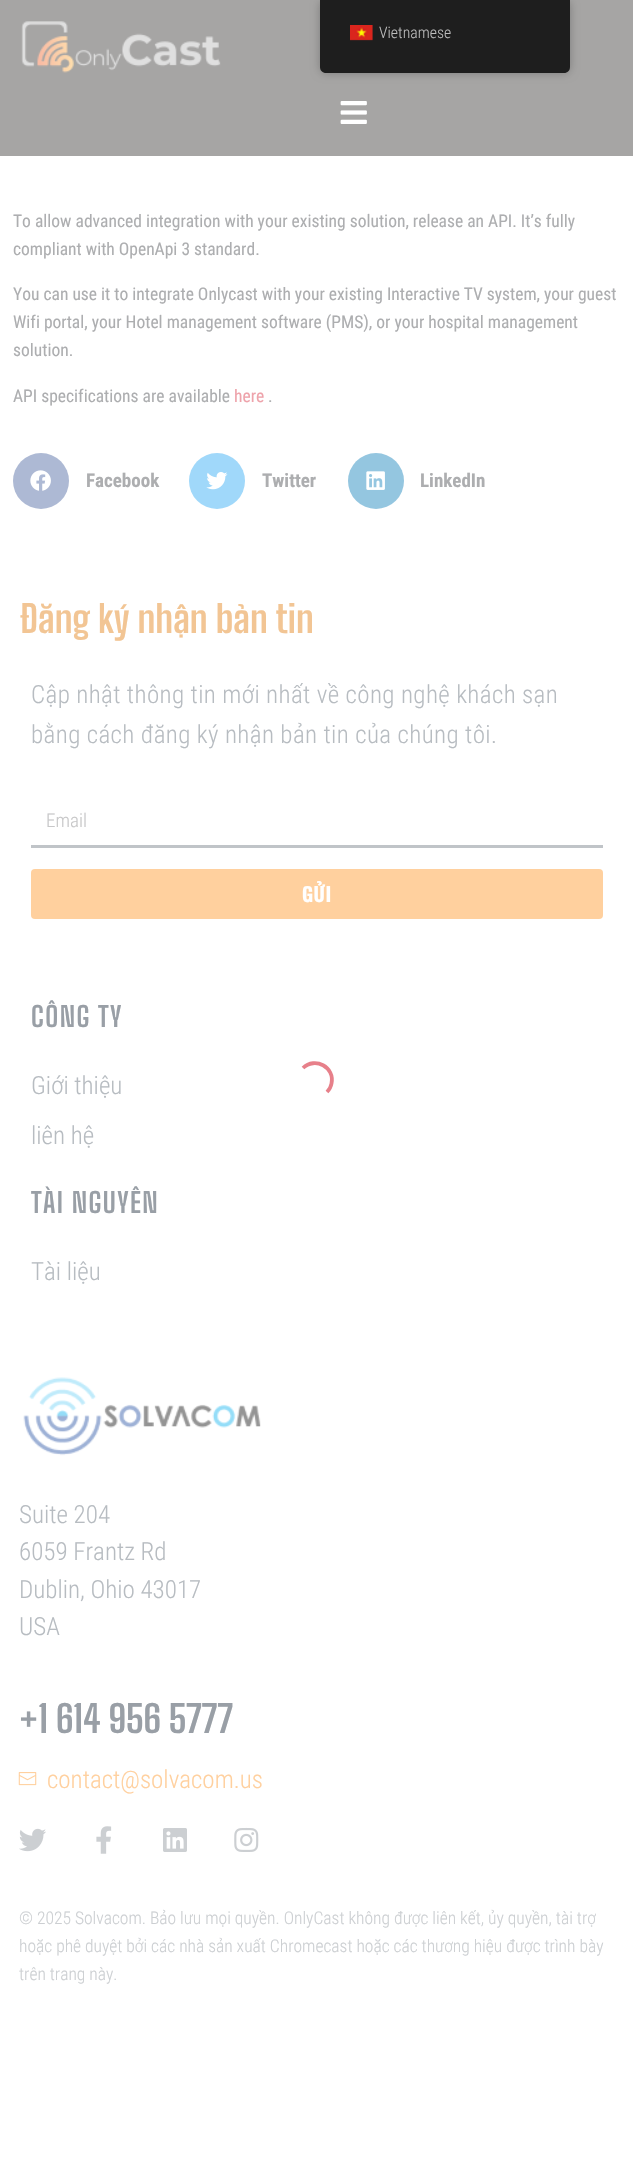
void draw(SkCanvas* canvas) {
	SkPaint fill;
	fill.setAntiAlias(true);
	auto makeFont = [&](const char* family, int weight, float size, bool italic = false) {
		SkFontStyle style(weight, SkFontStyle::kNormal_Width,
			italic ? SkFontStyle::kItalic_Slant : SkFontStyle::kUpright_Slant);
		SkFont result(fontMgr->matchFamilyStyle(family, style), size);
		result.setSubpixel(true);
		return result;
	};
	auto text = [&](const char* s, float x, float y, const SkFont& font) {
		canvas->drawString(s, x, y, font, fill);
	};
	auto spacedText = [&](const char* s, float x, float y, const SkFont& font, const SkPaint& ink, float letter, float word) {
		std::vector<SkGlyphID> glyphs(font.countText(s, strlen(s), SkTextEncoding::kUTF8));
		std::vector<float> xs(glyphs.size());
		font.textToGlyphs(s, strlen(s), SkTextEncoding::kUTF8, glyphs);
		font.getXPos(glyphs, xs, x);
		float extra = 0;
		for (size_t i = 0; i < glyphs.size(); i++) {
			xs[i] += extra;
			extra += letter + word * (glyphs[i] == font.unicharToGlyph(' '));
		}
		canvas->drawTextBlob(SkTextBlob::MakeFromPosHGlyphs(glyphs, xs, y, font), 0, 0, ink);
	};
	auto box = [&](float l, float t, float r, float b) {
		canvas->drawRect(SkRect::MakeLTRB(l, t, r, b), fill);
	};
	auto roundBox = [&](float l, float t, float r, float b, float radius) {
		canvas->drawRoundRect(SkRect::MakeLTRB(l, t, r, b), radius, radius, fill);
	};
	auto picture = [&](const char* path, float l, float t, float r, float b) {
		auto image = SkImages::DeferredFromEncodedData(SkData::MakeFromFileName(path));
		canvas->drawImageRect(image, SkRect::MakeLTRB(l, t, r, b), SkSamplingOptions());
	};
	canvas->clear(0xFFFFFFFF);
	fill.setColor(0xFFA6A5A4);
	box(0, 0, 633, 156);
	fill.setColor(0x40000000);
	fill.setMaskFilter(SkMaskFilter::MakeBlur(kNormal_SkBlurStyle, 5));
	canvas->drawRoundRect(SkRect::MakeLTRB(320, 0, 570, 73), 6, 6, fill);
	fill.setMaskFilter(nullptr);
	fill.setColor(0xFF1E1E1E);
	canvas->drawPath(SkPathBuilder().moveTo(320, 0).lineTo(570, 0).lineTo(570, 67).cubicTo(570, 70.5f, 567.5f, 73, 564, 73).lineTo(326, 73).cubicTo(322.5f, 73, 320, 70.5f, 320, 67).close().detach(), fill);
	picture("image0.png", 350, 25, 373, 41);
	picture("image1.png", 21, 21, 221, 73);
	picture("image2.png", 340, 101, 367, 124);
	fill.setColor(0xFFADB9D4);
	canvas->drawCircle(41, 481, 28, fill);
	picture("image3.png", 30, 470, 51, 491);
	fill.setColor(0xFFA0D8FA);
	canvas->drawCircle(217, 481, 28, fill);
	picture("image4.png", 206, 472, 228, 490);
	fill.setColor(0xFF94C6E0);
	canvas->drawCircle(376, 481, 28, fill);
	picture("image5.png", 366, 471, 385, 490);
	fill.setColor(0xFFC0C4C8);
	box(31, 845, 603, 848);
	fill.setColor(0xFFFFD09E);
	roundBox(31, 869, 603, 919, 4);
	picture("image6.png", 23, 1377, 261, 1456);
	picture("image7.png", 18, 1772, 37, 1786);
	picture("image8.png", 19, 1828, 46, 1852);
	picture("image9.png", 96, 1826, 112, 1854);
	picture("image10.png", 163, 1828, 187, 1852);
	picture("image11.png", 234, 1827, 259, 1852);
	fill.setStyle(SkPaint::kStroke_Style);
	fill.setStrokeWidth(3.8f);
	fill.setColor(0xFFE7808A);
	canvas->drawPath(SkPathBuilder().moveTo(303, 1068).cubicTo(315, 1056.5f, 335, 1067, 331.5f, 1083.5f).cubicTo(331, 1086.5f, 329.5f, 1089.5f, 327, 1092).detach(), fill);
	auto font1 = makeFont("Roboto Condensed", 300, 15.75f);
	fill.setStyle(SkPaint::kFill_Style);
	fill.setColor(0xFFBDBDBD);
	text("Vietnamese", 379, 38, font1);
	auto font2 = makeFont("Roboto Condensed", 400, 17.5f);
	fill.setColor(0xFFADAEB0);
	text("To allow advanced integration with your existing solution, release an API. It’s fully", 13, 227, font2);
	text("compliant with OpenApi 3 standard.", 13, 255, font2);
	text("You can use it to integrate Onlycast with your existing Interactive TV system, your guest", 13, 300, font2);
	text("Wifi portal, your Hotel management software (PMS), or your hospital management", 13, 328, font2);
	text("solution.", 13, 356, font2);
	text("API specifications are available", 13, 402, font2);
	fill.setColor(0xFFEEA3AB);
	text("here", 234, 402, font2);
	fill.setColor(0xFFADAEB0);
	text(".", 268, 402, font2);
	auto font3 = makeFont("Roboto Condensed", 700, 19);
	text("Facebook", 86, 487, font3);
	text("Twitter", 262, 487, font3);
	text("LinkedIn", 420, 487, font3);
	auto font4 = makeFont("Big Shoulders Text", 700, 37.5f);
	fill.setColor(0xFFF2C594);
	text("Đăng ký nhận bản tin", 19, 633, font4);
	auto font5 = makeFont("Roboto Condensed", 300, 25);
	fill.setColor(0xFFB7BCC1);
	spacedText("Cập nhật thông tin mới nhất về công nghệ khách sạn", 31, 703, font5, fill, 0.38f, 0);
	spacedText("bằng cách đăng ký nhận bản tin của chúng tôi.", 31, 743, font5, fill, 0.38f, 0);
	auto font6 = makeFont("Roboto Condensed", 300, 19);
	fill.setColor(0xFFC7C7C8);
	text("Email", 46, 827, font6);
	auto font7 = makeFont("Oswald", 700, 19);
	fill.setColor(0xFFFFFFFF);
	spacedText("GỬI", 302, 902, font7, fill, 1, 0);
	auto font8 = makeFont("Big Shoulders Text", 700, 27.5f);
	fill.setColor(0xFF999FA6);
	spacedText("CÔNG TY", 31, 1027, font8, fill, 1.4f, 0);
	fill.setColor(0xFFB7BCC1);
	text("Giới thiệu", 31, 1094, font5);
	text("liên hệ", 31, 1144, font5);
	fill.setColor(0xFF999FA6);
	spacedText("TÀI NGUYÊN", 31, 1213, font8, fill, 1.4f, 0);
	fill.setColor(0xFFB7BCC1);
	text("Tài liệu", 31, 1280, font5);
	text("Suite 204", 19, 1523, font5);
	text("6059 Frantz Rd", 19, 1560, font5);
	text("Dublin, Ohio 43017", 19, 1598, font5);
	text("USA", 19, 1635, font5);
	fill.setColor(0xFF999FA6);
	text("+1 614 956 5777", 19, 1733, font4);
	fill.setColor(0xFFFFD09E);
	text("contact@solvacom.us", 47, 1788, font5);
	auto font9 = makeFont("Roboto Condensed", 300, 17.5f);
	fill.setColor(0xFFCCCFD2);
	text("© 2025 Solvacom. Bảo lưu mọi quyền. OnlyCast không được liên kết, ủy quyền, tài trợ", 19, 1924, font9);
	text("hoặc phê duyệt bởi các nhà sản xuất Chromecast hoặc các thương hiệu được trình bày", 19, 1952, font9);
	text("trên trang này.", 19, 1980, font9);
}
